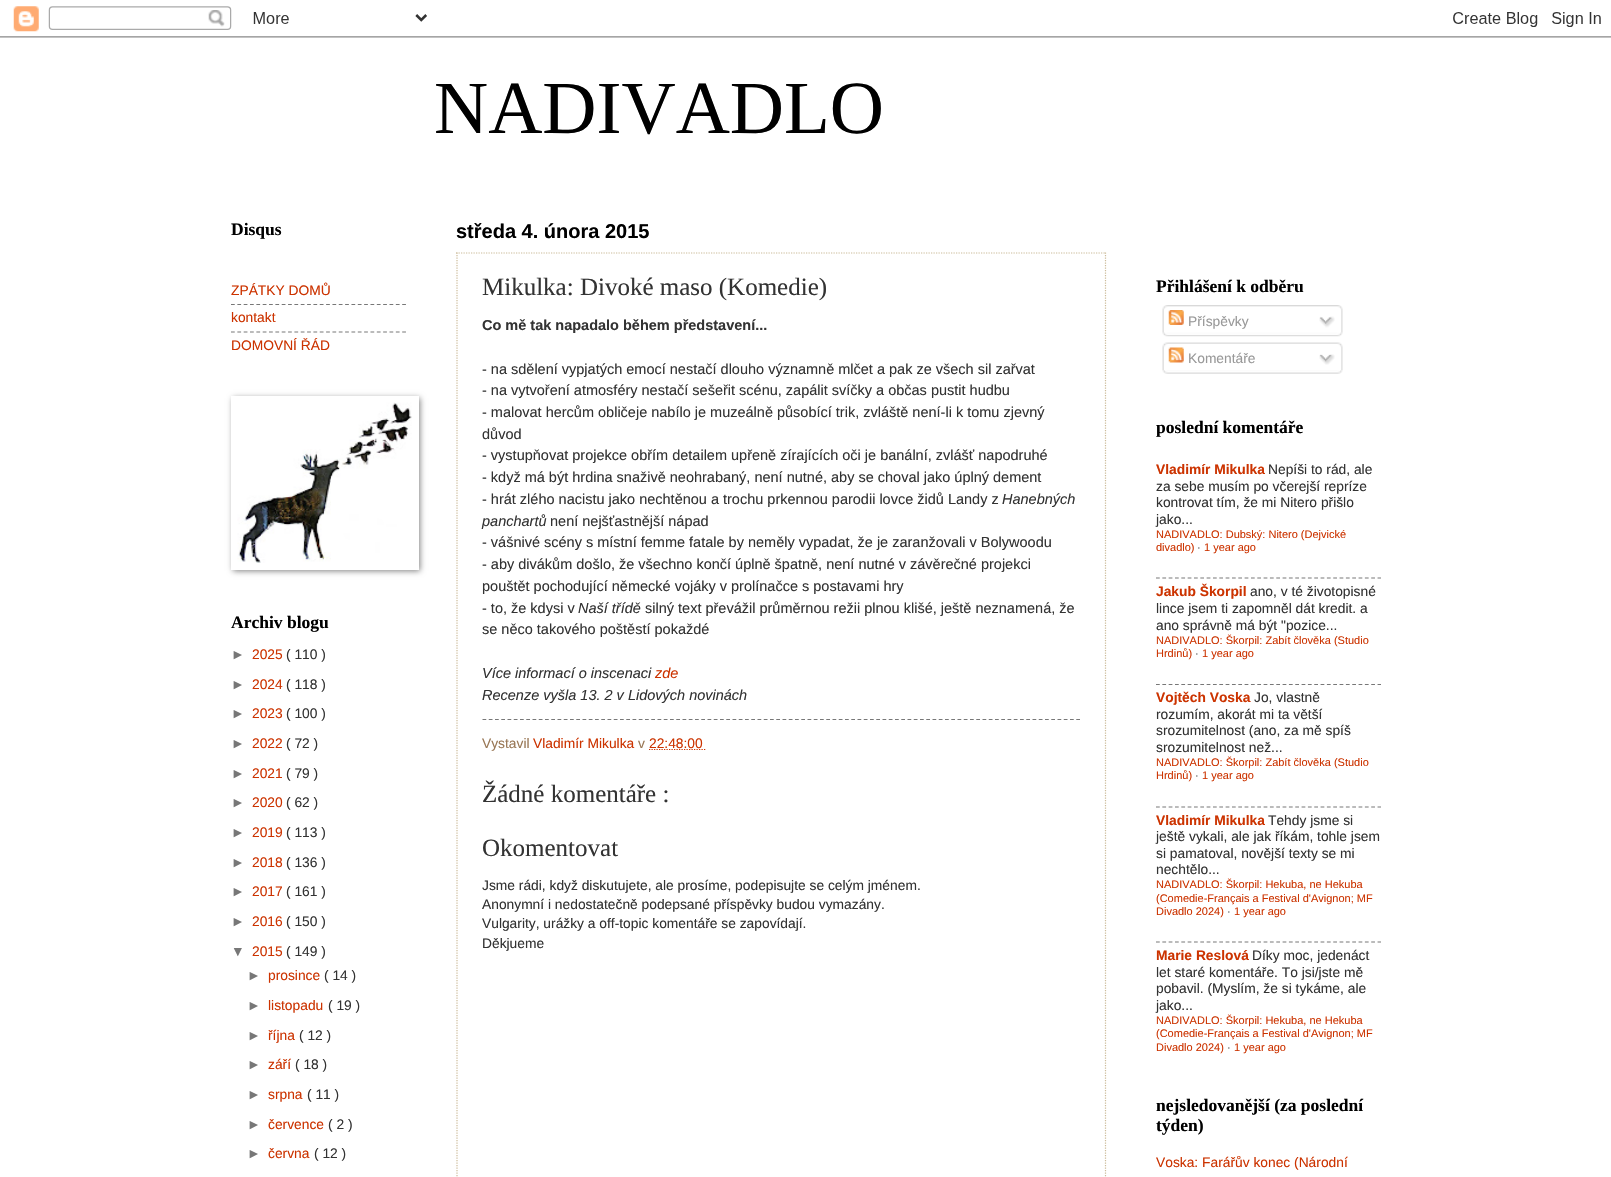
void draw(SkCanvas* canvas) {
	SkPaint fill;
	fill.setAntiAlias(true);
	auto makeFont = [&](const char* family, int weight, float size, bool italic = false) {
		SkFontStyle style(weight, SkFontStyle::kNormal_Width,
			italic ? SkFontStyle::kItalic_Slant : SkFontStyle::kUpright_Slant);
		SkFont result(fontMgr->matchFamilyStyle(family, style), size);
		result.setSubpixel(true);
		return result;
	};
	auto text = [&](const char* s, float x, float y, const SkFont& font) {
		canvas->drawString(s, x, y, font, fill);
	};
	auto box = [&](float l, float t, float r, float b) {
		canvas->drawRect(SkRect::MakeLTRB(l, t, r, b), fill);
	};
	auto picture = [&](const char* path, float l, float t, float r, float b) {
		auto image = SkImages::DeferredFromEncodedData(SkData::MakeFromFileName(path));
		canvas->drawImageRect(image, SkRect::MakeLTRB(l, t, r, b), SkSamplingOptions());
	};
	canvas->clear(0xFFFFFFFF);
	picture("image0.png", 0, 6, 1611, 38);
	fill.setStyle(SkPaint::kStroke_Style);
	fill.setStrokeWidth(1.2f);
	fill.setColor(0xFF777777);
	fill.setPathEffect(SkDashPathEffect::Make({{3.75f, 2.59f}}, 0));
	canvas->drawPath(SkPathBuilder().moveTo(231, 304.5f).lineTo(406, 304.5f).detach(), fill);
	fill.setPathEffect(nullptr);
	fill.setPathEffect(SkDashPathEffect::Make({{3.75f, 2.59f}}, 0));
	canvas->drawPath(SkPathBuilder().moveTo(231, 332).lineTo(406, 332).detach(), fill);
	fill.setPathEffect(nullptr);
	fill.setStyle(SkPaint::kFill_Style);
	fill.setColor(0x80000000);
	fill.setMaskFilter(SkMaskFilter::MakeBlur(kNormal_SkBlurStyle, 3));
	canvas->drawRect(SkRect::MakeLTRB(233, 398, 420, 571), fill);
	fill.setMaskFilter(nullptr);
	fill.setColor(0xFFFFFFFF);
	box(231, 396, 419, 570);
	picture("image1.png", 237, 402, 412, 563);
	fill.setStyle(SkPaint::kStroke_Style);
	fill.setColor(0xFFCCBB99);
	fill.setPathEffect(SkDashPathEffect::Make({{1.25f, 1.25f}}, 0));
	canvas->drawPath(SkPathBuilder().moveTo(456, 253).lineTo(1106, 253).detach(), fill);
	fill.setPathEffect(nullptr);
	fill.setPathEffect(SkDashPathEffect::Make({{1.25f, 1.25f}}, 0));
	canvas->drawPath(SkPathBuilder().moveTo(1105.5f, 252.5f).lineTo(1105.5f, 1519).detach(), fill);
	fill.setPathEffect(nullptr);
	fill.setPathEffect(SkDashPathEffect::Make({{1.25f, 1.25f}}, 0));
	canvas->drawPath(SkPathBuilder().moveTo(457, 252.5f).lineTo(457, 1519).detach(), fill);
	fill.setPathEffect(nullptr);
	fill.setColor(0xFF777777);
	fill.setPathEffect(SkDashPathEffect::Make({{3.75f, 2.5f}}, 0));
	canvas->drawPath(SkPathBuilder().moveTo(482.5f, 719.5f).lineTo(1080, 719.5f).detach(), fill);
	fill.setPathEffect(nullptr);
	fill.setColor(0xFFCC3300);
	fill.setPathEffect(SkDashPathEffect::Make({{1.25f, 1.25f}}, 0));
	canvas->drawPath(SkPathBuilder().moveTo(649, 749.5f).lineTo(706.5f, 749.5f).detach(), fill);
	fill.setPathEffect(nullptr);
	picture("image2.png", 1162, 305, 1343, 333);
	picture("image3.png", 1168, 310, 1184, 325);
	picture("image4.png", 1319, 316, 1335, 328);
	picture("image5.png", 1162, 332, 1343, 337);
	picture("image6.png", 1162, 342, 1343, 370);
	picture("image7.png", 1168, 347, 1184, 363);
	picture("image8.png", 1319, 354, 1335, 365);
	picture("image9.png", 1162, 370, 1343, 374);
	fill.setColor(0xFF777777);
	fill.setPathEffect(SkDashPathEffect::Make({{3.75f, 2.58f}}, 0));
	canvas->drawPath(SkPathBuilder().moveTo(1156, 578).lineTo(1381, 578).detach(), fill);
	fill.setPathEffect(nullptr);
	fill.setPathEffect(SkDashPathEffect::Make({{3.75f, 2.58f}}, 0));
	canvas->drawPath(SkPathBuilder().moveTo(1156, 684.5f).lineTo(1381, 684.5f).detach(), fill);
	fill.setPathEffect(nullptr);
	fill.setPathEffect(SkDashPathEffect::Make({{3.75f, 2.58f}}, 0));
	canvas->drawPath(SkPathBuilder().moveTo(1156, 807).lineTo(1381, 807).detach(), fill);
	fill.setPathEffect(nullptr);
	fill.setPathEffect(SkDashPathEffect::Make({{3.75f, 2.58f}}, 0));
	canvas->drawPath(SkPathBuilder().moveTo(1156, 942).lineTo(1381, 942).detach(), fill);
	fill.setPathEffect(nullptr);
	auto font1 = makeFont("Liberation Serif", 400, 75);
	fill.setStyle(SkPaint::kFill_Style);
	fill.setColor(0xFF000000);
	text("NADIVADLO", 434, 133, font1);
	auto font2 = makeFont("Liberation Serif", 700, 17.5f);
	text("Disqus", 231, 235, font2);
	auto font3 = makeFont("Liberation Sans", 400, 13.8f);
	fill.setColor(0xFFCC3300);
	text("ZPÁTKY DOMŮ", 231, 295, font3);
	text("kontakt", 231, 322, font3);
	text("DOMOVNÍ ŘÁD", 231, 350, font3);
	fill.setColor(0xFF000000);
	text("Archiv blogu", 231, 628, font2);
	fill.setColor(0xFF777777);
	text("►", 231, 659, font3);
	fill.setColor(0xFFCC3300);
	text("2025", 252, 659, font3);
	fill.setColor(0xFF333333);
	text("( 110 )", 286, 659, font3);
	fill.setColor(0xFF777777);
	text("►", 231, 689, font3);
	fill.setColor(0xFFCC3300);
	text("2024", 252, 689, font3);
	fill.setColor(0xFF333333);
	text("( 118 )", 286, 689, font3);
	fill.setColor(0xFF777777);
	text("►", 231, 718, font3);
	fill.setColor(0xFFCC3300);
	text("2023", 252, 718, font3);
	fill.setColor(0xFF333333);
	text("( 100 )", 286, 718, font3);
	fill.setColor(0xFF777777);
	text("►", 231, 748, font3);
	fill.setColor(0xFFCC3300);
	text("2022", 252, 748, font3);
	fill.setColor(0xFF333333);
	text("( 72 )", 286, 748, font3);
	fill.setColor(0xFF777777);
	text("►", 231, 778, font3);
	fill.setColor(0xFFCC3300);
	text("2021", 252, 778, font3);
	fill.setColor(0xFF333333);
	text("( 79 )", 286, 778, font3);
	fill.setColor(0xFF777777);
	text("►", 231, 807, font3);
	fill.setColor(0xFFCC3300);
	text("2020", 252, 807, font3);
	fill.setColor(0xFF333333);
	text("( 62 )", 286, 807, font3);
	fill.setColor(0xFF777777);
	text("►", 231, 837, font3);
	fill.setColor(0xFFCC3300);
	text("2019", 252, 837, font3);
	fill.setColor(0xFF333333);
	text("( 113 )", 286, 837, font3);
	fill.setColor(0xFF777777);
	text("►", 231, 867, font3);
	fill.setColor(0xFFCC3300);
	text("2018", 252, 867, font3);
	fill.setColor(0xFF333333);
	text("( 136 )", 286, 867, font3);
	fill.setColor(0xFF777777);
	text("►", 231, 896, font3);
	fill.setColor(0xFFCC3300);
	text("2017", 252, 896, font3);
	fill.setColor(0xFF333333);
	text("( 161 )", 286, 896, font3);
	fill.setColor(0xFF777777);
	text("►", 231, 926, font3);
	fill.setColor(0xFFCC3300);
	text("2016", 252, 926, font3);
	fill.setColor(0xFF333333);
	text("( 150 )", 286, 926, font3);
	fill.setColor(0xFF777777);
	text("▼", 231, 956, font3);
	fill.setColor(0xFFCC3300);
	text("2015", 252, 956, font3);
	fill.setColor(0xFF333333);
	text("( 149 )", 286, 956, font3);
	fill.setColor(0xFF777777);
	text("►", 247, 980, font3);
	fill.setColor(0xFFCC3300);
	text("prosince", 268, 980, font3);
	fill.setColor(0xFF333333);
	text("( 14 )", 324, 980, font3);
	fill.setColor(0xFF777777);
	text("►", 247, 1010, font3);
	fill.setColor(0xFFCC3300);
	text("listopadu", 268, 1010, font3);
	fill.setColor(0xFF333333);
	text("( 19 )", 328, 1010, font3);
	fill.setColor(0xFF777777);
	text("►", 247, 1040, font3);
	fill.setColor(0xFFCC3300);
	text("října", 268, 1040, font3);
	fill.setColor(0xFF333333);
	text("( 12 )", 299, 1040, font3);
	fill.setColor(0xFF777777);
	text("►", 247, 1069, font3);
	fill.setColor(0xFFCC3300);
	text("září", 268, 1069, font3);
	fill.setColor(0xFF333333);
	text("( 18 )", 295, 1069, font3);
	fill.setColor(0xFF777777);
	text("►", 247, 1099, font3);
	fill.setColor(0xFFCC3300);
	text("srpna", 268, 1099, font3);
	fill.setColor(0xFF333333);
	text("( 11 )", 307, 1099, font3);
	fill.setColor(0xFF777777);
	text("►", 247, 1129, font3);
	fill.setColor(0xFFCC3300);
	text("července", 268, 1129, font3);
	fill.setColor(0xFF333333);
	text("( 2 )", 328, 1129, font3);
	fill.setColor(0xFF777777);
	text("►", 247, 1158, font3);
	fill.setColor(0xFFCC3300);
	text("června", 268, 1158, font3);
	fill.setColor(0xFF333333);
	text("( 12 )", 314, 1158, font3);
	auto font4 = makeFont("Liberation Sans", 700, 20);
	fill.setColor(0xFF000000);
	text("středa 4. února 2015", 456, 238, font4);
	auto font5 = makeFont("Liberation Serif", 400, 25);
	fill.setColor(0xFF333333);
	text("Mikulka: Divoké maso (Komedie)", 482, 295, font5);
	auto font6 = makeFont("Liberation Sans", 700, 14.5f);
	text("Co mě tak napadalo během představení...", 482, 330, font6);
	auto font7 = makeFont("Liberation Sans", 400, 14.5f);
	text("- na sdělení vypjatých emocí nestačí dlouho významně mlčet a pak ze všech sil zařvat", 482, 374, font7);
	text("- na vytvoření atmosféry nestačí sešeřit scénu, zapálit svíčky a občas pustit hudbu", 482, 395, font7);
	text("- malovat hercům obličeje nabílo je muzeálně působící trik, zvláště není-li k tomu zjevný", 482, 417, font7);
	text("důvod", 482, 439, font7);
	text("- vystupňovat projekce obřím detailem upřeně zírajících oči je banální, zvlášť napodruhé", 482, 460, font7);
	text("- když má být hrdina snaživě neohrabaný, není nutné, aby se choval jako úplný dement", 482, 482, font7);
	text("- hrát zlého nacistu jako nechtěnou a trochu prkennou parodii lovce židů Landy z", 482, 504, font7);
	auto font8 = makeFont("Liberation Sans", 400, 14.5f, true);
	text("Hanebných", 1002, 504, font8);
	text("panchartů", 482, 526, font8);
	text("není nejšťastnější nápad", 550, 526, font7);
	text("- vášnivé scény s místní femme fatale by neměly vypadat, že je zaranžovali v Bolywoodu", 482, 547, font7);
	text("- aby divákům došlo, že všechno končí úplně špatně, není nutné v závěrečné projekci", 482, 569, font7);
	text("pouštět pochodující německé vojáky v prolínačce s postavami hry", 482, 591, font7);
	text("- to, že kdysi v", 482, 613, font7);
	text("Naší třídě", 578, 613, font8);
	text("silný text převážil průměrnou režii plnou klišé, ještě neznamená, že", 645, 613, font7);
	text("se něco takového poštěstí pokaždé", 482, 634, font7);
	text("Více informací o inscenaci", 482, 678, font8);
	fill.setColor(0xFFCC3300);
	text("zde", 655, 678, font8);
	fill.setColor(0xFF333333);
	text("Recenze vyšla 13. 2 v Lidových novinách", 482, 700, font8);
	fill.setColor(0xFF997755);
	text("Vystavil", 482, 748, font3);
	fill.setColor(0xFFCC3300);
	text("Vladimír Mikulka", 533, 748, font3);
	fill.setColor(0xFF997755);
	text("v", 638, 748, font3);
	fill.setColor(0xFFCC3300);
	text("22:48:00", 649, 748, font3);
	fill.setColor(0xFF333333);
	text("Žádné komentáře :", 482, 802, font5);
	text("Okomentovat", 482, 856, font5);
	text("Jsme rádi, když diskutujete, ale prosíme, podepisujte se celým jménem.", 482, 890, font3);
	text("Anonymní i nedostatečně podepsané příspěvky budou vymazány.", 482, 909, font3);
	text("Vulgarity, urážky a off-topic komentáře se zapovídají.", 482, 928, font3);
	text("Děkjueme", 482, 948, font3);
	fill.setColor(0xFF000000);
	text("Přihlášení k odběru", 1156, 292, font2);
	fill.setColor(0xFF999999);
	text("Příspěvky", 1188, 326, font3);
	text("Komentáře", 1188, 363, font3);
	fill.setColor(0xFF000000);
	text("poslední komentáře", 1156, 433, font2);
	auto font9 = makeFont("Liberation Sans", 700, 13.8f);
	fill.setColor(0xFFCC3300);
	text("Vladimír Mikulka", 1156, 474, font9);
	fill.setColor(0xFF333333);
	text("Nepíši to rád, ale", 1268, 474, font3);
	text("za sebe musím po včerejší repríze", 1156, 491, font3);
	text("kontrovat tím, že mi Nitero přišlo", 1156, 507, font3);
	text("jako...", 1156, 524, font3);
	auto font10 = makeFont("Liberation Sans", 400, 11);
	fill.setColor(0xFFCC3300);
	text("NADIVADLO: Dubský: Nitero (Dejvické", 1156, 538, font10);
	text("divadlo)", 1156, 551, font10);
	fill.setColor(0xFF333333);
	text("·", 1197, 551, font10);
	fill.setColor(0xFFCC3300);
	text("1 year ago", 1204, 551, font10);
	text("Jakub Škorpil", 1156, 596, font9);
	fill.setColor(0xFF333333);
	text("ano, v té životopisné", 1250, 596, font3);
	text("lince jsem ti zapomněl dát kredit. a", 1156, 613, font3);
	text("ano správně má být \"pozice...", 1156, 630, font3);
	fill.setColor(0xFFCC3300);
	text("NADIVADLO: Škorpil: Zabít člověka (Studio", 1156, 644, font10);
	text("Hrdinů)", 1156, 657, font10);
	fill.setColor(0xFF333333);
	text("·", 1195, 657, font10);
	fill.setColor(0xFFCC3300);
	text("1 year ago", 1202, 657, font10);
	text("Vojtěch Voska", 1156, 702, font9);
	fill.setColor(0xFF333333);
	text("Jo, vlastně", 1254, 702, font3);
	text("rozumím, akorát mi ta větší", 1156, 719, font3);
	text("srozumitelnost (ano, za mě spíš", 1156, 735, font3);
	text("srozumitelnost než...", 1156, 752, font3);
	fill.setColor(0xFFCC3300);
	text("NADIVADLO: Škorpil: Zabít člověka (Studio", 1156, 766, font10);
	text("Hrdinů)", 1156, 779, font10);
	fill.setColor(0xFF333333);
	text("·", 1195, 779, font10);
	fill.setColor(0xFFCC3300);
	text("1 year ago", 1202, 779, font10);
	text("Vladimír Mikulka", 1156, 825, font9);
	fill.setColor(0xFF333333);
	text("Tehdy jsme si", 1268, 825, font3);
	text("ještě vykali, ale jak říkám, tohle jsem", 1156, 841, font3);
	text("si pamatoval, novější texty se mi", 1156, 858, font3);
	text("nechtělo...", 1156, 874, font3);
	fill.setColor(0xFFCC3300);
	text("NADIVADLO: Škorpil: Hekuba, ne Hekuba", 1156, 888, font10);
	text("(Comedie-Français a Festival d'Avignon; MF", 1156, 902, font10);
	text("Divadlo 2024)", 1156, 915, font10);
	fill.setColor(0xFF333333);
	text("·", 1227, 915, font10);
	fill.setColor(0xFFCC3300);
	text("1 year ago", 1234, 915, font10);
	text("Marie Reslová", 1156, 960, font9);
	fill.setColor(0xFF333333);
	text("Díky moc, jedenáct", 1252, 960, font3);
	text("let staré komentáře. To jsi/jste mě", 1156, 977, font3);
	text("pobavil. (Myslím, že si tykáme, ale", 1156, 993, font3);
	text("jako...", 1156, 1010, font3);
	fill.setColor(0xFFCC3300);
	text("NADIVADLO: Škorpil: Hekuba, ne Hekuba", 1156, 1024, font10);
	text("(Comedie-Français a Festival d'Avignon; MF", 1156, 1037, font10);
	text("Divadlo 2024)", 1156, 1051, font10);
	fill.setColor(0xFF333333);
	text("·", 1227, 1051, font10);
	fill.setColor(0xFFCC3300);
	text("1 year ago", 1234, 1051, font10);
	fill.setColor(0xFF000000);
	text("nejsledovanější (za poslední", 1156, 1111, font2);
	text("týden)", 1156, 1131, font2);
	fill.setColor(0xFFCC3300);
	text("Voska: Farářův konec (Národní", 1156, 1167, font3);
}
